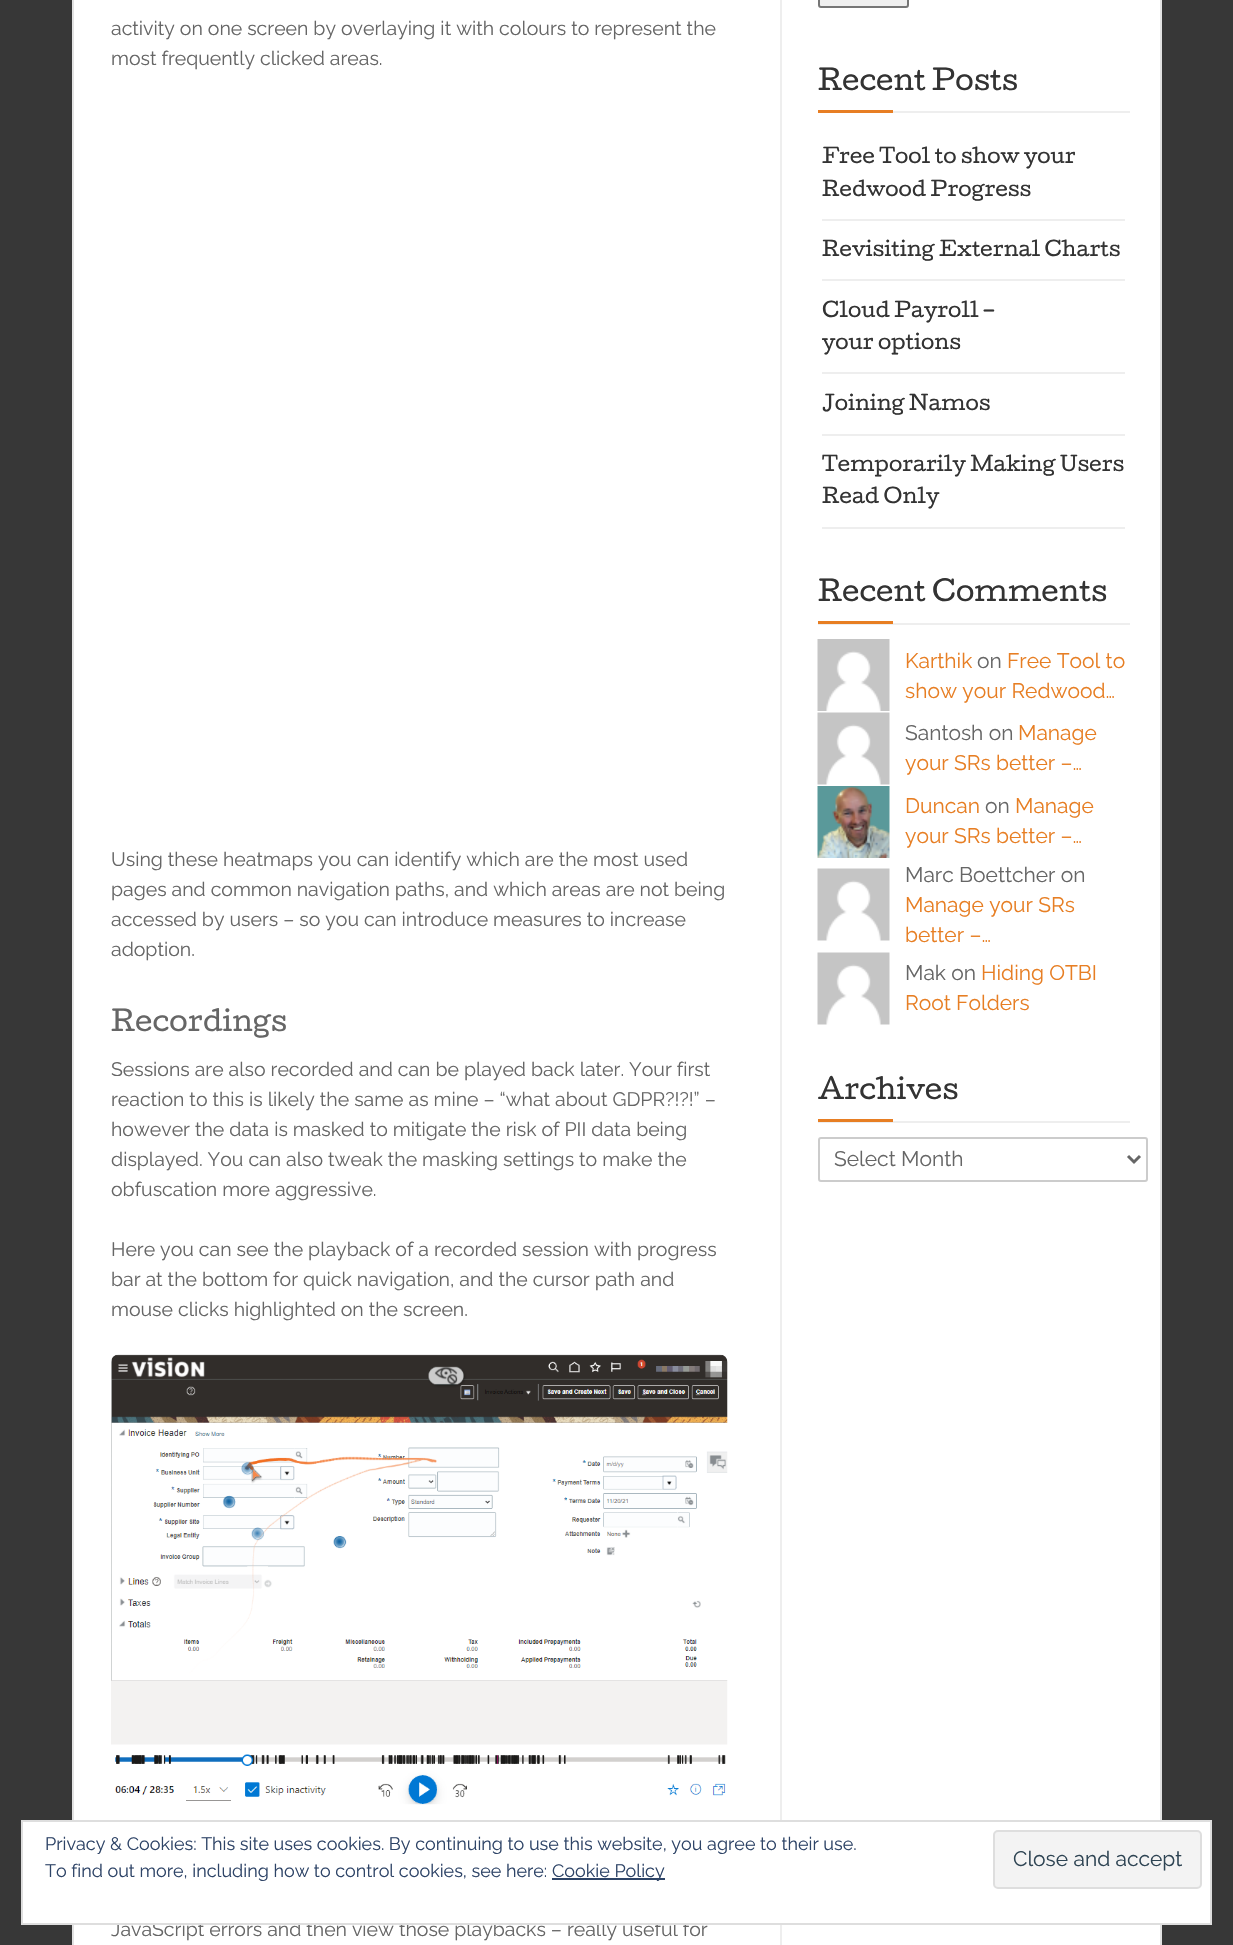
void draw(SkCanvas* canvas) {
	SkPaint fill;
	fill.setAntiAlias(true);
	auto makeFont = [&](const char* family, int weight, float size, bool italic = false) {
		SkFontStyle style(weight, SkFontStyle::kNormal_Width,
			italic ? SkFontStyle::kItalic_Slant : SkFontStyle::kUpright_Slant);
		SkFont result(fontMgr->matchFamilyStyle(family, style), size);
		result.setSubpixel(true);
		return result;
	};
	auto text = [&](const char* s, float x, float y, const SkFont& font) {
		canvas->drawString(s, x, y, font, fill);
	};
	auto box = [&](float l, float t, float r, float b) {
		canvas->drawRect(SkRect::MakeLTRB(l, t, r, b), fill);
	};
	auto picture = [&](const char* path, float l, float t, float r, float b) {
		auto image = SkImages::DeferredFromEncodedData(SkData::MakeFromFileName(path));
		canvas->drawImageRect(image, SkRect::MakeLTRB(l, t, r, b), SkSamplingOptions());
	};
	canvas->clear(0xFF373737);
	fill.setColor(0xFFFFFFFF);
	box(74, 0, 1160, 1945);
	fill.setColor(0xFFE2E2E2);
	box(1160, 0, 1162, 1945);
	box(72, 0, 74, 1945);
	fill.setColor(0xFFEEEEEE);
	box(780, 0, 782, 1945);
	picture("image0.png", 111, 1354, 728, 1805);
	fill.setColor(0xFFEFEFEF);
	canvas->drawRoundRect(SkRect::MakeLTRB(819, -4, 908, 7), 2, 2, fill);
	fill.setStyle(SkPaint::kStroke_Style);
	fill.setStrokeWidth(2);
	fill.setColor(0xFF767676);
	canvas->drawRoundRect(SkRect::MakeLTRB(819, -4, 908, 7), 2, 2, fill);
	fill.setStyle(SkPaint::kFill_Style);
	fill.setColor(0xFFEEEEEE);
	box(893, 111, 1130, 113);
	fill.setColor(0xFFE77E23);
	box(818, 110, 893, 113);
	fill.setColor(0xFFEEEEEE);
	box(822, 219, 1125, 221);
	box(822, 279, 1125, 281);
	box(822, 372, 1125, 374);
	box(822, 434, 1125, 436);
	box(822, 527, 1125, 529);
	box(818, 623, 1130, 625);
	fill.setColor(0xFFE77E23);
	box(818, 621, 893, 624);
	picture("image1.png", 817, 639, 890, 711);
	picture("image2.png", 817, 712, 890, 785);
	picture("image3.png", 817, 786, 890, 858);
	picture("image2.png", 817, 868, 890, 941);
	picture("image2.png", 817, 952, 890, 1025);
	fill.setColor(0xFFEEEEEE);
	box(818, 1121, 1130, 1123);
	fill.setColor(0xFFE77E23);
	box(818, 1119, 893, 1122);
	fill.setStyle(SkPaint::kStroke_Style);
	fill.setColor(0xFFCCCCCC);
	canvas->drawRoundRect(SkRect::MakeLTRB(819, 1138, 1147, 1181), 2, 2, fill);
	fill.setStrokeWidth(3);
	fill.setColor(0xFF666666);
	canvas->drawPath(SkPathBuilder().moveTo(1128, 1156).lineTo(1134, 1162).lineTo(1140, 1156).detach(), fill);
	auto font1 = makeFont("Raleway", 400, 19.5f);
	fill.setStyle(SkPaint::kFill_Style);
	text("activity on one screen by overlaying it with colours to represent the", 111, 35, font1);
	text("most frequently clicked areas.", 111, 65, font1);
	text("Using these heatmaps you can identify which are the most used", 111, 866, font1);
	text("pages and common navigation paths, and which areas are not being", 111, 896, font1);
	text("accessed by users – so you can introduce measures to increase", 111, 926, font1);
	text("adoption.", 111, 956, font1);
	auto font2 = makeFont("Cutive", 400, 27);
	text("Recordings", 111, 1031, font2);
	text("Sessions are also recorded and can be played back later. Your first", 111, 1076, font1);
	text("reaction to this is likely the same as mine – “what about GDPR?!?!” –", 111, 1106, font1);
	text("however the data is masked to mitigate the risk of PII data being", 111, 1136, font1);
	text("displayed. You can also tweak the masking settings to make the", 111, 1166, font1);
	text("obfuscation more aggressive.", 111, 1196, font1);
	text("Here you can see the playback of a recorded session with progress", 111, 1256, font1);
	text("bar at the bottom for quick navigation, and the cursor path and", 111, 1286, font1);
	text("mouse clicks highlighted on the screen.", 111, 1316, font1);
	text("JavaScript errors and then view those playbacks – really useful for", 111, 1936, font1);
	fill.setColor(0xFF333333);
	text("Recent Posts", 818, 90, font2);
	auto font3 = makeFont("Cutive", 400, 19.5f);
	text("Free Tool to show your", 822, 163, font3);
	text("Redwood Progress", 822, 196, font3);
	text("Revisiting External Charts", 822, 256, font3);
	text("Cloud Payroll –", 822, 317, font3);
	text("your options", 822, 349, font3);
	text("Joining Namos", 822, 410, font3);
	text("Temporarily Making Users", 822, 471, font3);
	text("Read Only", 822, 503, font3);
	text("Recent Comments", 818, 601, font2);
	auto font4 = makeFont("Raleway", 400, 21);
	fill.setColor(0xFFE77E23);
	text("Karthik", 905, 668, font4);
	fill.setColor(0xFF666666);
	text("on", 977, 668, font4);
	fill.setColor(0xFFE77E23);
	text("Free Tool to", 1007, 668, font4);
	text("show your Redwood…", 905, 698, font4);
	fill.setColor(0xFF666666);
	text("Santosh on", 905, 740, font4);
	fill.setColor(0xFFE77E23);
	text("Manage", 1018, 740, font4);
	text("your SRs better –…", 905, 770, font4);
	text("Duncan", 905, 813, font4);
	fill.setColor(0xFF666666);
	text("on", 985, 813, font4);
	fill.setColor(0xFFE77E23);
	text("Manage", 1015, 813, font4);
	text("your SRs better –…", 905, 843, font4);
	fill.setColor(0xFF666666);
	text("Marc Boettcher on", 905, 882, font4);
	fill.setColor(0xFFE77E23);
	text("Manage your SRs", 905, 912, font4);
	text("better –…", 905, 942, font4);
	fill.setColor(0xFF666666);
	text("Mak on", 905, 980, font4);
	fill.setColor(0xFFE77E23);
	text("Hiding OTBI", 981, 980, font4);
	text("Root Folders", 905, 1010, font4);
	fill.setColor(0xFF333333);
	text("Archives", 818, 1099, font2);
	fill.setColor(0xFF666666);
	text("Select Month", 834, 1166, font4);
	fill.setColor(0xFFFFFFFF);
	canvas->drawRect(SkRect::MakeLTRB(22, 1821, 1211, 1924), fill);
	fill.setStyle(SkPaint::kStroke_Style);
	fill.setStrokeWidth(2);
	fill.setColor(0xFFDEDEDE);
	canvas->drawRect(SkRect::MakeLTRB(22, 1821, 1211, 1924), fill);
	auto font5 = makeFont("Raleway", 400, 18);
	fill.setStyle(SkPaint::kFill_Style);
	fill.setColor(0xFF2E4467);
	text("Privacy & Cookies: This site uses cookies. By continuing to use this website, you agree to their use.", 45, 1850, font5);
	text("To find out more, including how to control cookies, see here:", 45, 1877, font5);
	box(552, 1878, 665, 1880);
	text("Cookie Policy", 552, 1877, font5);
	fill.setColor(0xFFF3F3F3);
	canvas->drawRoundRect(SkRect::MakeLTRB(994, 1831, 1201, 1888), 4, 4, fill);
	fill.setStyle(SkPaint::kStroke_Style);
	fill.setColor(0xFFDEDEDE);
	canvas->drawRoundRect(SkRect::MakeLTRB(994, 1831, 1201, 1888), 4, 4, fill);
	fill.setStyle(SkPaint::kFill_Style);
	fill.setColor(0xFF2E4453);
	text("Close and accept", 1013, 1866, font4);
}
